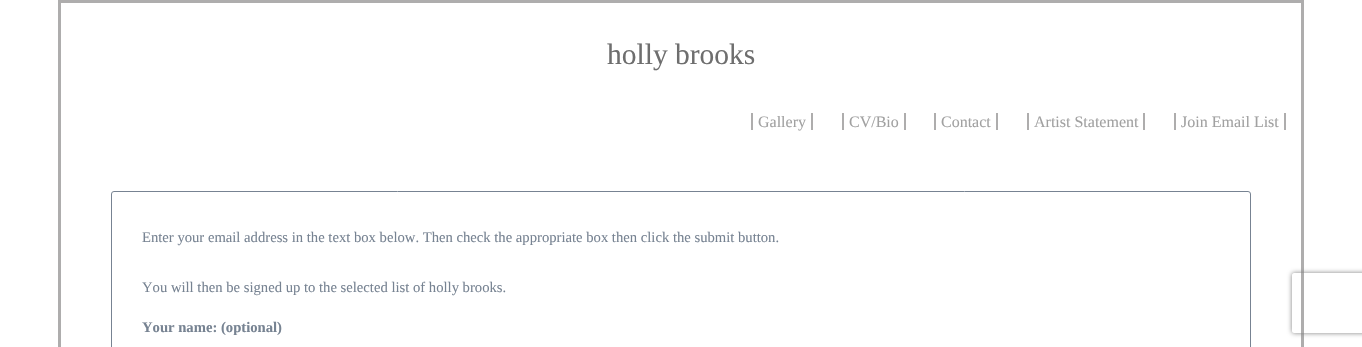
void draw(SkCanvas* canvas) {
	SkPaint fill;
	fill.setAntiAlias(true);
	auto makeFont = [&](const char* family, int weight, float size, bool italic = false) {
		SkFontStyle style(weight, SkFontStyle::kNormal_Width,
			italic ? SkFontStyle::kItalic_Slant : SkFontStyle::kUpright_Slant);
		SkFont result(fontMgr->matchFamilyStyle(family, style), size);
		result.setSubpixel(true);
		return result;
	};
	auto text = [&](const char* s, float x, float y, const SkFont& font) {
		canvas->drawString(s, x, y, font, fill);
	};
	auto box = [&](float l, float t, float r, float b) {
		canvas->drawRect(SkRect::MakeLTRB(l, t, r, b), fill);
	};
	canvas->clear(0xFFFFFFFF);
	fill.setColor(0xFFAEADAD);
	box(58, 0, 1304, 3);
	box(1301, 0, 1304, 347);
	box(58, 0, 61, 347);
	box(811, 113, 813, 130);
	box(751, 113, 753, 130);
	box(904, 113, 906, 130);
	box(842, 113, 844, 130);
	box(996, 113, 998, 130);
	box(934, 113, 936, 130);
	box(1143, 113, 1145, 130);
	box(1027, 113, 1029, 130);
	box(1284, 113, 1286, 130);
	box(1174, 113, 1176, 130);
	fill.setStyle(SkPaint::kStroke_Style);
	fill.setStrokeWidth(1);
	fill.setColor(0xFF778392);
	canvas->drawRoundRect(SkRect::MakeLTRB(111.5f, 191.5f, 1250.5f, 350.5f), 2.5f, 2.5f, fill);
	canvas->save();
	canvas->clipPath(SkPathBuilder(SkPathFillType::kEvenOdd).moveTo(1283, 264).lineTo(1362, 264).lineTo(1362, 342).lineTo(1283, 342).close().moveTo(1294, 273).lineTo(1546, 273).cubicTo(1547, 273, 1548, 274, 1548, 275).lineTo(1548, 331).cubicTo(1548, 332, 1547, 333, 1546, 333).lineTo(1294, 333).cubicTo(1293, 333, 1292, 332, 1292, 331).lineTo(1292, 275).cubicTo(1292, 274, 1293, 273, 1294, 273).close().detach(), true);
	fill.setStyle(SkPaint::kFill_Style);
	fill.setColor(0xFF808080);
	fill.setMaskFilter(SkMaskFilter::MakeBlur(kNormal_SkBlurStyle, 2.5f));
	canvas->drawRoundRect(SkRect::MakeLTRB(1292, 273, 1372, 333), 2, 2, fill);
	fill.setMaskFilter(nullptr);
	canvas->restore();
	auto font1 = makeFont("Liberation Serif", 400, 29.5f);
	fill.setColor(0xFF6E6E6E);
	text("holly brooks", 607, 64, font1);
	auto font2 = makeFont("Liberation Serif", 400, 16);
	fill.setColor(0xFFA1A1A1);
	text("Gallery", 758, 127, font2);
	text("CV/Bio", 849, 127, font2);
	text("Contact", 941, 127, font2);
	text("Artist Statement", 1034, 127, font2);
	text("Join Email List", 1181, 127, font2);
	auto font3 = makeFont("Liberation Serif", 400, 14.65f);
	fill.setColor(0xFF778392);
	text("Enter your email address in the text box below. Then check the appropriate box then click the submit button.", 142, 242, font3);
	text("You will then be signed up to the selected list of holly brooks.", 142, 292, font3);
	auto font4 = makeFont("Liberation Serif", 700, 14.65f);
	text("Your name: (optional)", 142, 332, font4);
}
